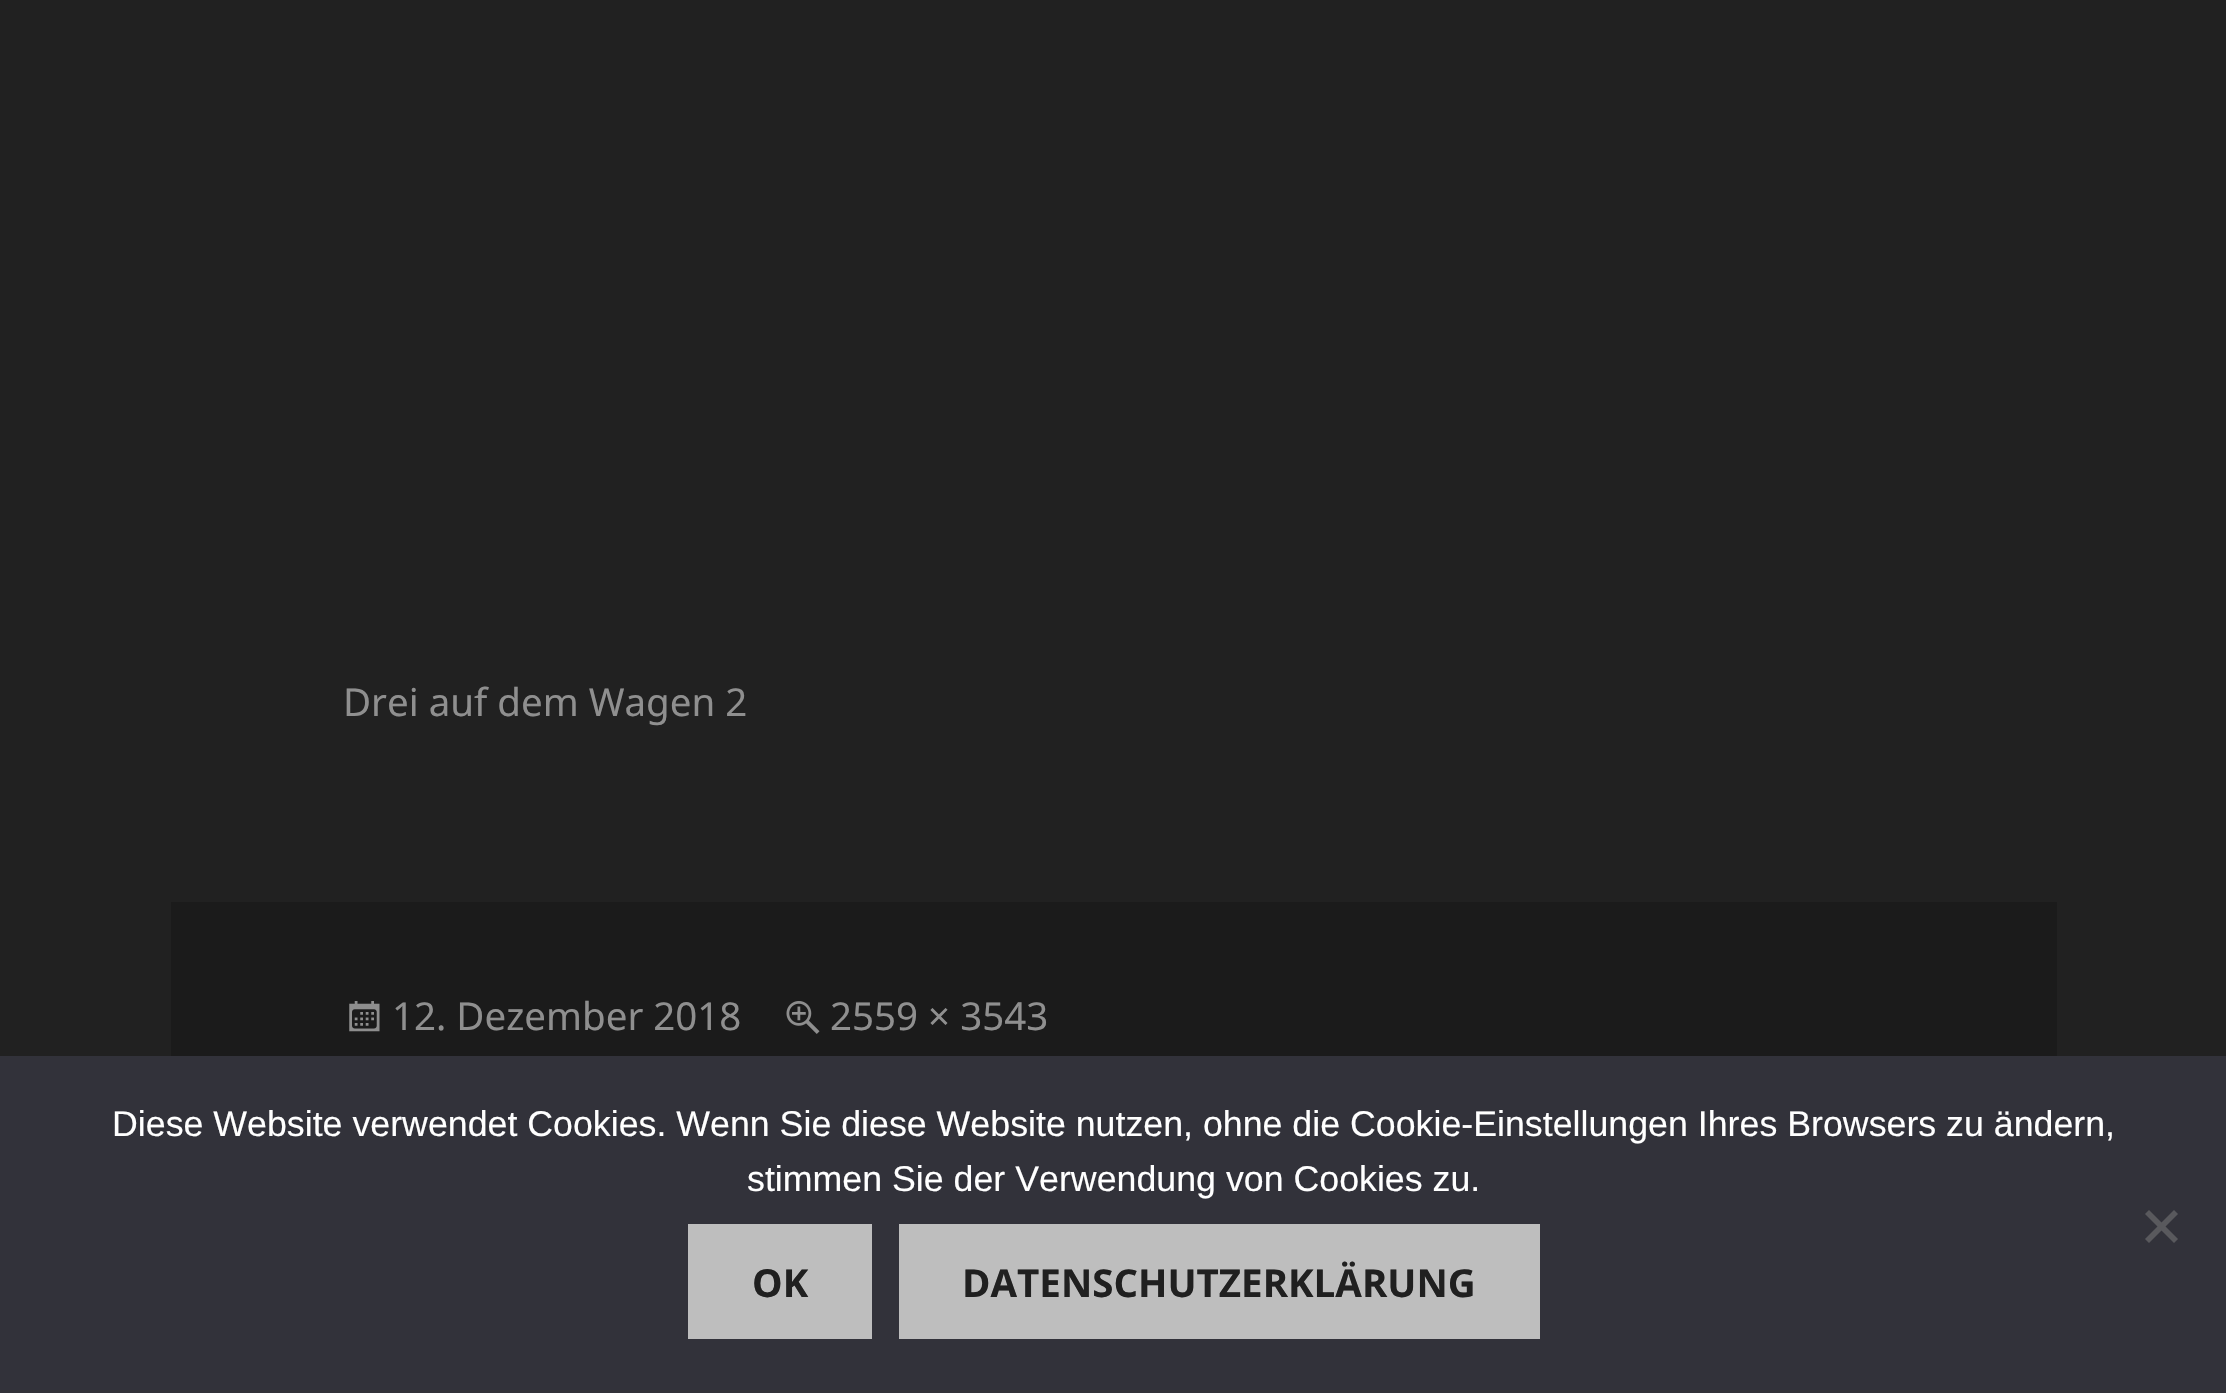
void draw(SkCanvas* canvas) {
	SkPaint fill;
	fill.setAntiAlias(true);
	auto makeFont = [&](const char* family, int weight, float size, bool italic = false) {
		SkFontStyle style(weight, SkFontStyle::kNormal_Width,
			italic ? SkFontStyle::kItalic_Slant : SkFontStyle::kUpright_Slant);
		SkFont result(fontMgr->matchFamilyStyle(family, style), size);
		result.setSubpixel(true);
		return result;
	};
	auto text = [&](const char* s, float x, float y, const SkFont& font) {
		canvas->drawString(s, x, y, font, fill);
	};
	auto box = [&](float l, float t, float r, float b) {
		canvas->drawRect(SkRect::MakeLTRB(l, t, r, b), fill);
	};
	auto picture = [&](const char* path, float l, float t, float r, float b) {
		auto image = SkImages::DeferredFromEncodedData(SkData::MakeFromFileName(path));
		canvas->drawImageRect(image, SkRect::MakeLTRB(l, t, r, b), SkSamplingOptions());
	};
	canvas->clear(0xFF212121);
	fill.setColor(0xFF1B1B1B);
	box(171, 902, 2057, 1056);
	picture("image0.png", 349, 1001, 380, 1032);
	picture("image1.png", 786, 1001, 820, 1034);
	fill.setColor(0xFF32323A);
	box(0, 1056, 2226, 1393);
	fill.setColor(0xFF59595D);
	canvas->drawPath(SkPathBuilder().moveTo(2174, 1210).lineTo(2178, 1214).lineTo(2149, 1243).lineTo(2145, 1239).close().detach(), fill);
	canvas->drawPath(SkPathBuilder().moveTo(2145, 1214).lineTo(2149, 1210).lineTo(2178, 1239).lineTo(2174, 1243).close().detach(), fill);
	fill.setColor(0xFFBEBEBE);
	box(688, 1224, 872, 1339);
	box(899, 1224, 1540, 1339);
	auto font1 = makeFont("Noto Sans", 400, 38.5f);
	fill.setColor(0xFF8F8F8F);
	text("Drei auf dem Wagen 2", 343, 716, font1);
	text("12. Dezember 2018", 392, 1030, font1);
	text("2559 × 3543", 830, 1030, font1);
	auto font2 = makeFont("Liberation Sans", 400, 35.75f);
	fill.setColor(0xFFFFFFFF);
	text("Diese Website verwendet Cookies. Wenn Sie diese Website nutzen, ohne die Cookie-Einstellungen Ihres Browsers zu ändern,", 112, 1136, font2);
	text("stimmen Sie der Verwendung von Cookies zu.", 747, 1191, font2);
	auto font3 = makeFont("Noto Sans", 700, 38.5f);
	fill.setColor(0xFF202020);
	text("OK", 752, 1297, font3);
	text("DATENSCHUTZERKLÄRUNG", 962, 1297, font3);
}
